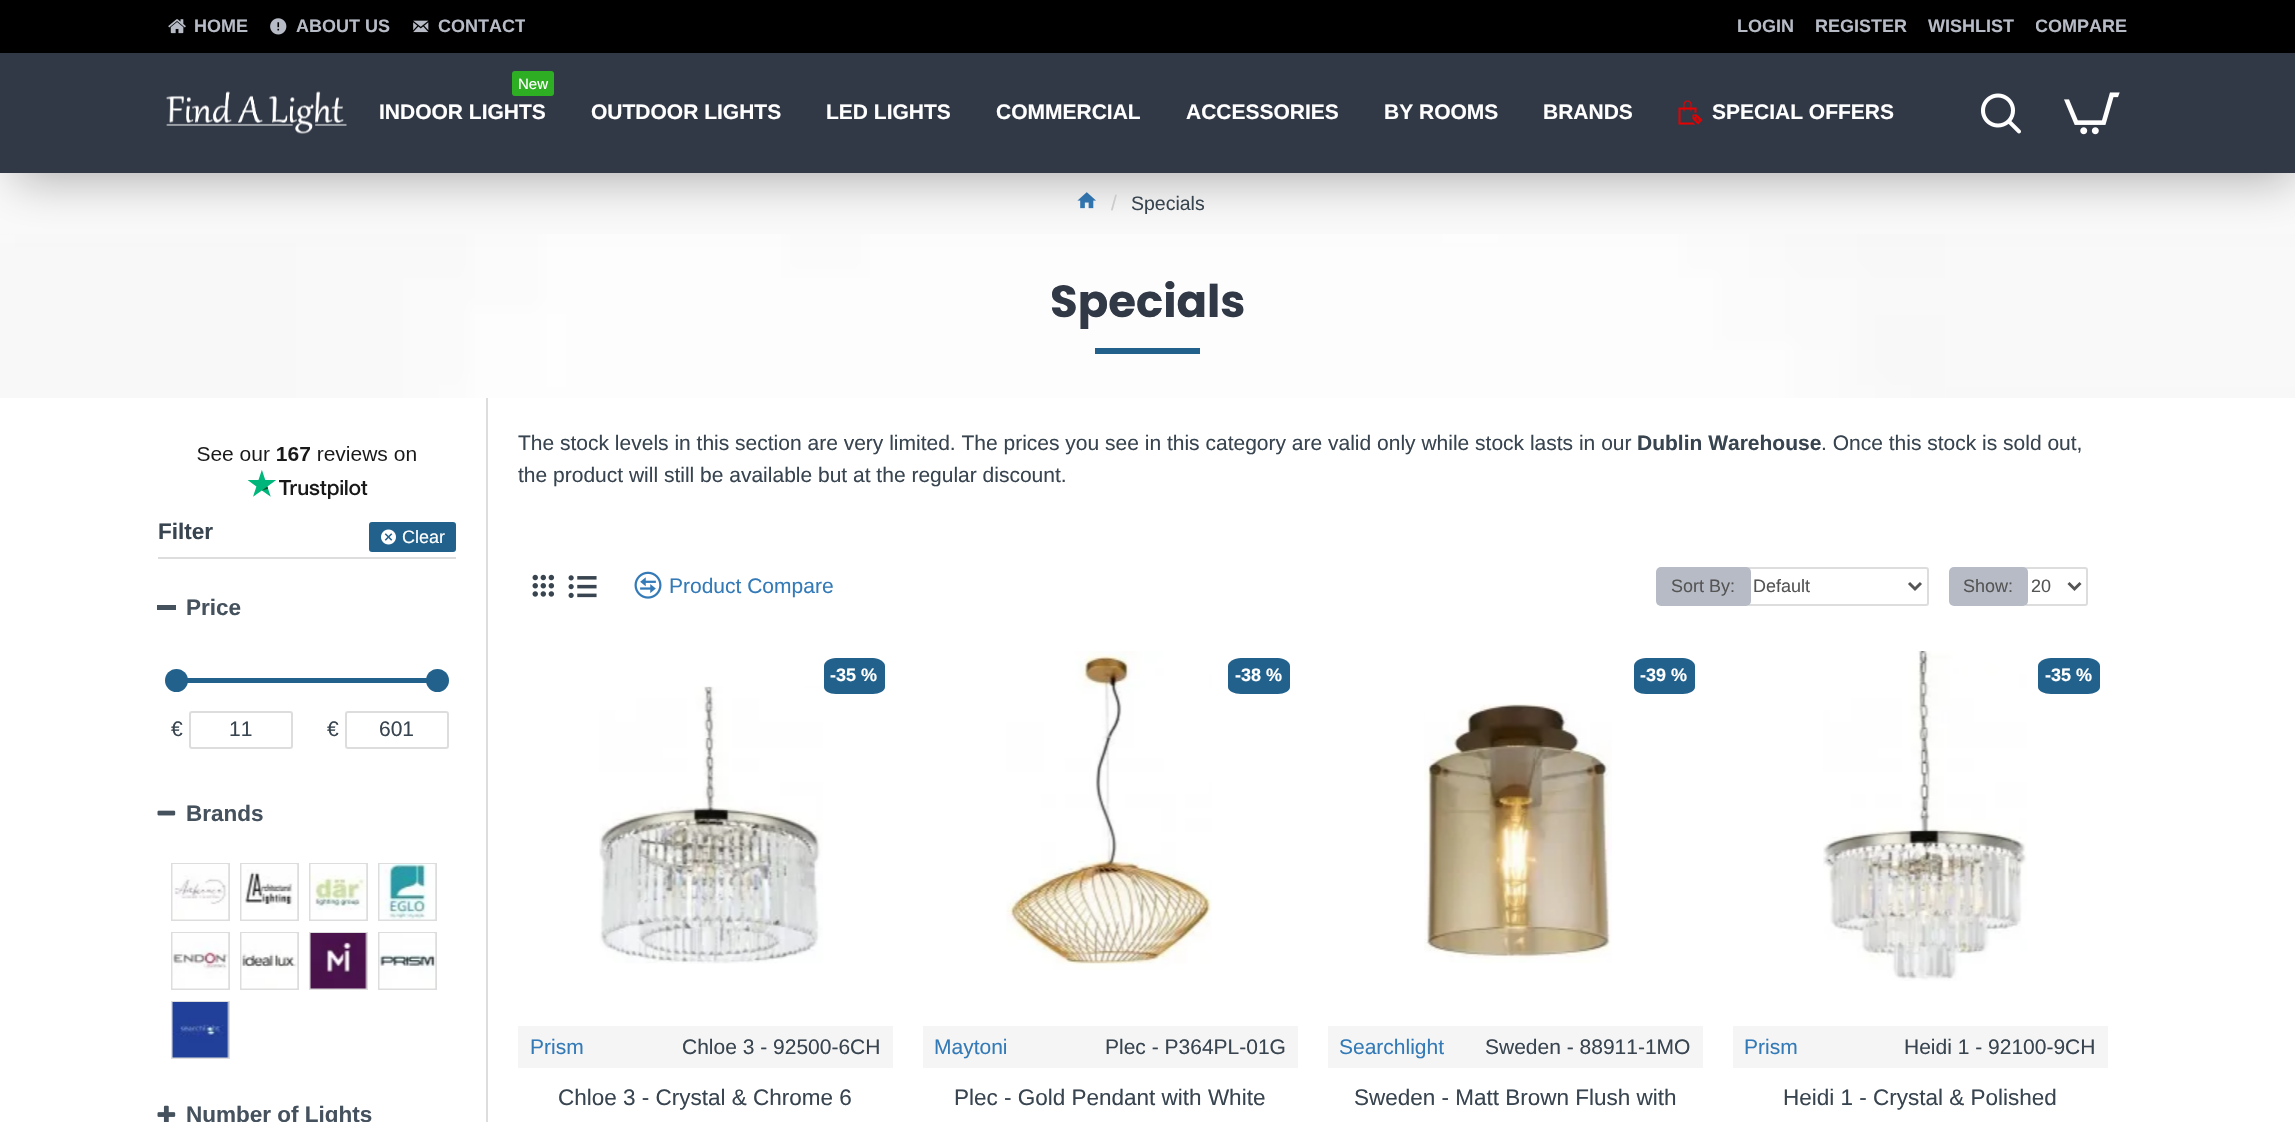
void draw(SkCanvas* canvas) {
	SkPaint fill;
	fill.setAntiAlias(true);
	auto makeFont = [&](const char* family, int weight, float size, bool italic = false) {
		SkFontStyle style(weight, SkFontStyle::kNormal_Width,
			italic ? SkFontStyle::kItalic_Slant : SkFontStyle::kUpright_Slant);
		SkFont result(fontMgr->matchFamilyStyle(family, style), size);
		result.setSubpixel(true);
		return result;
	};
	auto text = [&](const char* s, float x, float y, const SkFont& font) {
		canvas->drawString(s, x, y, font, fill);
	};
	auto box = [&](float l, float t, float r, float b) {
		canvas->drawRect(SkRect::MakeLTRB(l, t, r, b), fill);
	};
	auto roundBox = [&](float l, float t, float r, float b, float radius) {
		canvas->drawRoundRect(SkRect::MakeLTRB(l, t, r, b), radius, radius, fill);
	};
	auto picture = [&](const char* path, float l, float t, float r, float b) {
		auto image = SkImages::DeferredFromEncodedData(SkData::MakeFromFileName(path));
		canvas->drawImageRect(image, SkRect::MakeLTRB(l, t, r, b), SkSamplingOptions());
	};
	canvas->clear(0xFFFFFFFF);
	fill.setColor(0xFFFAFAFA);
	box(0, 173, 2295, 234);
	picture("image7.png", 1077, 192, 1096, 209);
	picture("image8.png", 0, 234, 2295, 398);
	fill.setColor(0x4D000000);
	fill.setMaskFilter(SkMaskFilter::MakeBlur(kNormal_SkBlurStyle, 22.5f));
	canvas->drawRect(SkRect::MakeLTRB(15, 23, 2295, 180), fill);
	fill.setMaskFilter(nullptr);
	fill.setColor(0xFF313846);
	box(0, 53, 2295, 173);
	fill.setColor(0xFF000000);
	box(0, 0, 2295, 53);
	picture("image0.png", 168, 19, 186, 34);
	picture("image1.png", 270, 18, 287, 35);
	picture("image2.png", 413, 20, 429, 33);
	picture("image3.png", 166, 91, 347, 134);
	fill.setColor(0xFF2EAF23);
	roundBox(512, 71, 554, 96, 3);
	picture("image4.png", 1678, 100, 1703, 125);
	picture("image5.png", 1981, 93, 2021, 134);
	picture("image6.png", 2064, 92, 2120, 135);
	fill.setColor(0xFF21618C);
	box(1095, 348, 1200, 354);
	fill.setColor(0xFFDDDDDD);
	box(486, 398, 488, 1122);
	picture("image9.png", 197, 446, 416, 499);
	box(158, 557, 456, 559);
	fill.setColor(0xFF21618C);
	roundBox(369, 522, 456, 552, 3);
	picture("image10.png", 381, 529, 396, 545);
	fill.setColor(0xFF45525E);
	box(157, 605, 176, 610);
	fill.setColor(0xFF21618C);
	canvas->drawPath(SkPathBuilder().moveTo(184, 678).lineTo(430, 678).lineTo(436, 679).lineTo(438, 680).cubicTo(439, 682, 431, 683, 430, 683).lineTo(184, 683).cubicTo(175, 683, 175, 678, 184, 678).close().detach(), fill);
	canvas->drawCircle(176.5f, 680.5f, 11.5f, fill);
	canvas->drawCircle(437.5f, 680.5f, 11.5f, fill);
	fill.setStyle(SkPaint::kStroke_Style);
	fill.setStrokeWidth(2);
	fill.setColor(0xFFDDDDDD);
	canvas->drawRoundRect(SkRect::MakeLTRB(190, 712, 292, 748), 2, 2, fill);
	canvas->drawRoundRect(SkRect::MakeLTRB(346, 712, 448, 748), 2, 2, fill);
	picture("image11.png", 157, 810, 176, 816);
	canvas->drawRect(SkRect::MakeLTRB(172, 864, 229, 920), fill);
	picture("image12.png", 172, 864, 229, 920);
	canvas->drawRect(SkRect::MakeLTRB(241, 864, 298, 920), fill);
	picture("image13.png", 241, 864, 298, 920);
	canvas->drawRect(SkRect::MakeLTRB(310, 864, 367, 920), fill);
	picture("image14.png", 310, 864, 367, 920);
	canvas->drawRect(SkRect::MakeLTRB(379, 864, 436, 920), fill);
	picture("image15.png", 379, 864, 436, 920);
	canvas->drawRect(SkRect::MakeLTRB(172, 933, 229, 989), fill);
	picture("image16.png", 172, 933, 229, 989);
	canvas->drawRect(SkRect::MakeLTRB(241, 933, 298, 989), fill);
	picture("image17.png", 241, 933, 298, 989);
	canvas->drawRect(SkRect::MakeLTRB(310, 933, 367, 989), fill);
	picture("image18.png", 310, 933, 367, 989);
	canvas->drawRect(SkRect::MakeLTRB(379, 933, 436, 989), fill);
	picture("image19.png", 379, 933, 436, 989);
	canvas->drawRect(SkRect::MakeLTRB(172, 1002, 229, 1058), fill);
	picture("image20.png", 172, 1002, 229, 1058);
	picture("image21.png", 157, 1105, 176, 1122);
	picture("image22.png", 532, 574, 555, 597);
	picture("image23.png", 568, 575, 597, 598);
	picture("image24.png", 634, 571, 662, 599);
	canvas->drawRoundRect(SkRect::MakeLTRB(1747, 568, 1928, 605), 2, 2, fill);
	fill.setStyle(SkPaint::kFill_Style);
	fill.setColor(0xFFB6BBC6);
	roundBox(1656, 567, 1751, 606, 5);
	fill.setStyle(SkPaint::kStroke_Style);
	fill.setStrokeWidth(3);
	fill.setColor(0xFF555555);
	canvas->drawPath(SkPathBuilder().moveTo(1909, 583).lineTo(1915, 589).lineTo(1921, 583).detach(), fill);
	fill.setStrokeWidth(2);
	fill.setColor(0xFFDDDDDD);
	canvas->drawRoundRect(SkRect::MakeLTRB(2025, 568, 2087, 605), 2, 2, fill);
	fill.setStyle(SkPaint::kFill_Style);
	fill.setColor(0xFFB6BBC6);
	roundBox(1949, 567, 2028, 606, 5);
	fill.setStyle(SkPaint::kStroke_Style);
	fill.setStrokeWidth(3);
	fill.setColor(0xFF555555);
	canvas->drawPath(SkPathBuilder().moveTo(2068.5f, 583).lineTo(2074.5f, 589).lineTo(2080.5f, 583).detach(), fill);
	fill.setStyle(SkPaint::kFill_Style);
	fill.setColor(0xFF21618C);
	canvas->drawPath(SkPathBuilder().moveTo(836, 658).lineTo(873, 658).cubicTo(879, 658, 885, 662, 885, 666).lineTo(885, 687).cubicTo(885, 691, 879, 694, 873, 694).lineTo(836, 694).cubicTo(829, 694, 824, 691, 824, 687).lineTo(824, 666).cubicTo(824, 662, 829, 658, 836, 658).close().detach(), fill);
	picture("image25.png", 599, 686, 823, 964);
	fill.setColor(0xFFF5F5F5);
	box(518, 1026, 893, 1068);
	picture("image26.png", 1006, 651, 1212, 970);
	fill.setColor(0xFF21618C);
	canvas->drawPath(SkPathBuilder().moveTo(1241, 658).lineTo(1278, 658).cubicTo(1284, 658, 1290, 662, 1290, 666).lineTo(1290, 687).cubicTo(1290, 691, 1284, 694, 1278, 694).lineTo(1241, 694).cubicTo(1234, 694, 1228, 691, 1228, 687).lineTo(1228, 666).cubicTo(1228, 662, 1234, 658, 1241, 658).close().detach(), fill);
	fill.setColor(0xFFF5F5F5);
	box(923, 1026, 1298, 1068);
	fill.setColor(0xFF21618C);
	canvas->drawPath(SkPathBuilder().moveTo(1646, 658).lineTo(1683, 658).cubicTo(1689, 658, 1695, 662, 1695, 666).lineTo(1695, 687).cubicTo(1695, 691, 1689, 694, 1683, 694).lineTo(1646, 694).cubicTo(1639, 694, 1634, 691, 1634, 687).lineTo(1634, 666).cubicTo(1634, 662, 1639, 658, 1646, 658).close().detach(), fill);
	picture("image27.png", 1424, 703, 1612, 963);
	fill.setColor(0xFFF5F5F5);
	box(1328, 1026, 1703, 1068);
	picture("image28.png", 1823, 651, 2027, 981);
	fill.setColor(0xFF21618C);
	canvas->drawPath(SkPathBuilder().moveTo(2051, 658).lineTo(2088, 658).cubicTo(2094, 658, 2100, 662, 2100, 666).lineTo(2100, 687).cubicTo(2100, 691, 2094, 694, 2088, 694).lineTo(2051, 694).cubicTo(2044, 694, 2038, 691, 2038, 687).lineTo(2038, 666).cubicTo(2038, 662, 2044, 658, 2051, 658).close().detach(), fill);
	fill.setColor(0xFFF5F5F5);
	box(1733, 1026, 2108, 1068);
	auto font1 = makeFont("Liberation Sans", 700, 18);
	fill.setColor(0xFFB6BBC6);
	text("HOME", 194, 32, font1);
	text("ABOUT US", 296, 32, font1);
	canvas->save();
	canvas->clipRect(SkRect::MakeLTRB(438, 14, 525, 41));
	text("CONTACT", 438, 32, font1);
	canvas->restore();
	text("LOGIN", 1737, 32, font1);
	text("REGISTER", 1815, 32, font1);
	text("WISHLIST", 1928, 32, font1);
	canvas->save();
	canvas->clipRect(SkRect::MakeLTRB(2036, 14, 2127, 41));
	text("COMPARE", 2035, 32, font1);
	canvas->restore();
	auto font2 = makeFont("Liberation Sans", 400, 15);
	fill.setColor(0xFFFFFFFF);
	text("New", 518, 89, font2);
	auto font3 = makeFont("Liberation Sans", 700, 21);
	text("INDOOR LIGHTS", 379, 119, font3);
	text("OUTDOOR LIGHTS", 591, 119, font3);
	text("LED LIGHTS", 826, 119, font3);
	text("COMMERCIAL", 996, 119, font3);
	text("ACCESSORIES", 1186, 119, font3);
	text("BY ROOMS", 1384, 119, font3);
	text("BRANDS", 1543, 119, font3);
	text("SPECIAL OFFERS", 1712, 119, font3);
	auto font4 = makeFont("Liberation Sans", 400, 21);
	fill.setColor(0xFFCCCCCC);
	text("/", 1111, 210, font4);
	auto font5 = makeFont("Liberation Sans", 400, 19.5f);
	fill.setColor(0xFF38444F);
	text("Specials", 1131, 210, font5);
	auto font6 = makeFont("Poppins", 700, 45);
	fill.setColor(0xFF313846);
	text("Specials", 1050, 317, font6);
	auto font7 = makeFont("Liberation Sans", 700, 22.5f);
	fill.setColor(0xFF38444F);
	text("Filter", 158, 539, font7);
	auto font8 = makeFont("Liberation Sans", 400, 18);
	fill.setColor(0xFFFFFFFF);
	text("Clear", 402, 543, font8);
	fill.setColor(0xFF45525E);
	text("Price", 186, 615, font7);
	fill.setColor(0xFF38444F);
	text("€", 171, 736, font4);
	text("11", 229, 736, font4);
	text("€", 327, 736, font4);
	text("601", 379, 736, font4);
	fill.setColor(0xFF45525E);
	text("Brands", 186, 821, font7);
	text("Number of Lights", 186, 1122, font7);
	fill.setColor(0xFF38444F);
	text("The stock levels in this section are very limited. The prices you see in this category are valid only while stock lasts in our", 518, 450, font4);
	text("Dublin Warehouse", 1637, 450, font3);
	text(". Once this stock is sold out,", 1821, 450, font4);
	text("the product will still be available but at the regular discount.", 518, 482, font4);
	fill.setColor(0xFF337AB7);
	text("Product Compare", 669, 593, font4);
	fill.setColor(0xFF555555);
	text("Sort By:", 1671, 592, font8);
	text("Default", 1753, 592, font8);
	text("Show:", 1963, 592, font8);
	text("20", 2031, 592, font8);
	fill.setColor(0xFFFFFFFF);
	text("-35 %", 830, 681, font1);
	fill.setColor(0xFF337AB7);
	text("Prism", 530, 1054, font4);
	fill.setColor(0xFF38444F);
	text("Chloe 3 - 92500-6CH", 682, 1054, font4);
	auto font9 = makeFont("Liberation Sans", 400, 22.5f);
	text("Chloe 3 - Crystal & Chrome 6", 558, 1105, font9);
	fill.setColor(0xFFFFFFFF);
	text("-38 %", 1235, 681, font1);
	fill.setColor(0xFF337AB7);
	text("Maytoni", 934, 1054, font4);
	fill.setColor(0xFF38444F);
	text("Plec - P364PL-01G", 1105, 1054, font4);
	text("Plec - Gold Pendant with White", 954, 1105, font9);
	fill.setColor(0xFFFFFFFF);
	text("-39 %", 1640, 681, font1);
	fill.setColor(0xFF337AB7);
	text("Searchlight", 1339, 1054, font4);
	fill.setColor(0xFF38444F);
	text("Sweden - 88911-1MO", 1485, 1054, font4);
	text("Sweden - Matt Brown Flush with", 1354, 1105, font9);
	fill.setColor(0xFFFFFFFF);
	text("-35 %", 2045, 681, font1);
	fill.setColor(0xFF337AB7);
	text("Prism", 1744, 1054, font4);
	fill.setColor(0xFF38444F);
	text("Heidi 1 - 92100-9CH", 1904, 1054, font4);
	text("Heidi 1 - Crystal & Polished", 1783, 1105, font9);
}
